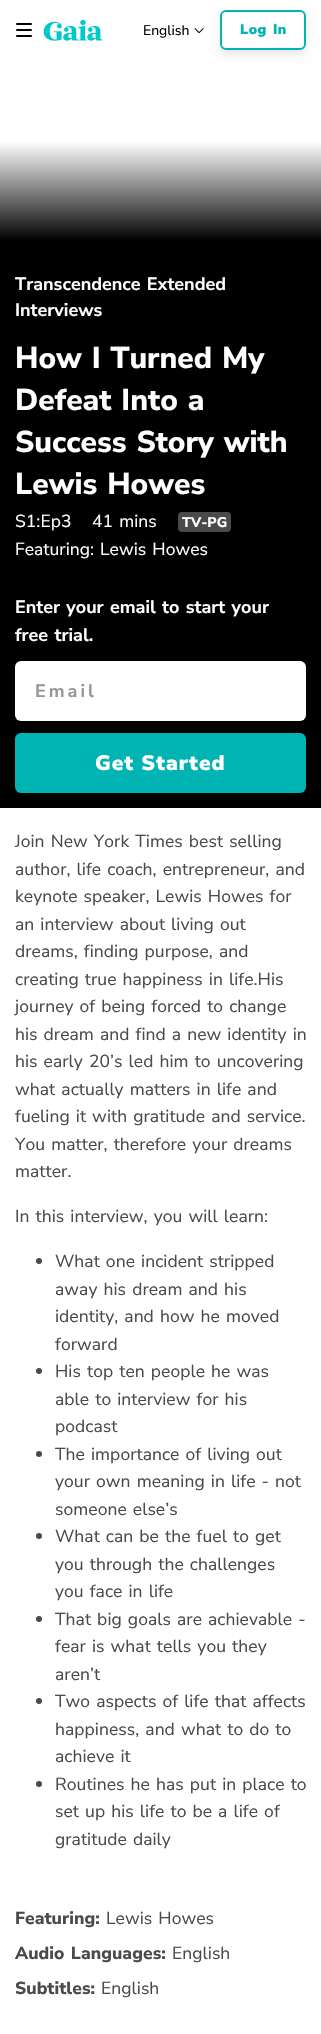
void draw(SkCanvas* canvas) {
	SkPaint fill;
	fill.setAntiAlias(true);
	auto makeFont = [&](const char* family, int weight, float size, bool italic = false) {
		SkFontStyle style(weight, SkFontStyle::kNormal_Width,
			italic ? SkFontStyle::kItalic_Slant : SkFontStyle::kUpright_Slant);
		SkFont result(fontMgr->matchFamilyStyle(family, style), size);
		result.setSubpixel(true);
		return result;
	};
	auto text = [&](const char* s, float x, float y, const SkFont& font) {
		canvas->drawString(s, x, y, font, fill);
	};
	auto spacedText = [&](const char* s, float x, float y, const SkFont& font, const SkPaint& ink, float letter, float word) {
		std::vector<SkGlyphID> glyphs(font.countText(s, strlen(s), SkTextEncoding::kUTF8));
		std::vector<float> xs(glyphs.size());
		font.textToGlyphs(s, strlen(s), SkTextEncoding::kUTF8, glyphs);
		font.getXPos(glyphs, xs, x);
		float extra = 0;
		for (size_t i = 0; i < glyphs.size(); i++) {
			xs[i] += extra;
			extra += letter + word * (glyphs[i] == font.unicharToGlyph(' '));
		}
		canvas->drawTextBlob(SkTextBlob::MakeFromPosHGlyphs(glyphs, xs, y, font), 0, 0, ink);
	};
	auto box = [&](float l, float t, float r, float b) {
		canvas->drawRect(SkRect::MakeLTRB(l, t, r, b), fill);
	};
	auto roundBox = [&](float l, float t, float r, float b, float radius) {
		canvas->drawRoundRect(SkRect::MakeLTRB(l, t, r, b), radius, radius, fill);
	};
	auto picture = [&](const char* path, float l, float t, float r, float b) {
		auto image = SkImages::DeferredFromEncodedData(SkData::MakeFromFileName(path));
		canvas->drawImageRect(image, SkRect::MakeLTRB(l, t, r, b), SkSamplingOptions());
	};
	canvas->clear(0xFFFFFFFF);
	fill.setColor(0xFF000000);
	roundBox(16, 23, 32, 25, 1);
	roundBox(16, 29, 32, 31, 1);
	roundBox(16, 35, 32, 37, 1);
	picture("image0.png", 43, 20, 103, 41);
	picture("image1.png", 194, 28, 204, 34);
	canvas->save();
	canvas->clipPath(SkPathBuilder(SkPathFillType::kEvenOdd).moveTo(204, 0).lineTo(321, 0).lineTo(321, 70).lineTo(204, 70).close().moveTo(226, 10).lineTo(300, 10).cubicTo(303.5f, 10, 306, 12.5f, 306, 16).lineTo(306, 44).cubicTo(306, 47.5f, 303.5f, 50, 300, 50).lineTo(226, 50).cubicTo(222.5f, 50, 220, 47.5f, 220, 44).lineTo(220, 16).cubicTo(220, 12.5f, 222.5f, 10, 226, 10).close().detach(), true);
	fill.setColor(0x1A000000);
	fill.setMaskFilter(SkMaskFilter::MakeBlur(kNormal_SkBlurStyle, 5));
	canvas->drawRoundRect(SkRect::MakeLTRB(220, 14, 306, 54), 6, 6, fill);
	fill.setMaskFilter(nullptr);
	canvas->restore();
	fill.setStyle(SkPaint::kStroke_Style);
	fill.setStrokeWidth(2);
	fill.setColor(0xFF01B4B4);
	canvas->drawRoundRect(SkRect::MakeLTRB(221, 11, 305, 49), 5, 5, fill);
	fill.setStyle(SkPaint::kFill_Style);
	{
		const SkColor colors[] = {0xFF000000, 0xFFFFFFFF};
		const float stops[] = {0, 0.55f};
		const SkPoint ends[] = {{161, 241}, {161, 60}};
		fill.setShader(SkGradientShader::MakeLinear(ends, colors, stops, 2, SkTileMode::kClamp));
		fill.setAlpha(255);
	}
	box(0, 142, 321, 241);
	fill.setShader(nullptr);
	fill.setColor(0xFF000000);
	box(0, 241, 321, 808);
	fill.setColor(0xFF4A4A4A);
	roundBox(178, 512, 231, 532, 4);
	fill.setColor(0xFFFFFFFF);
	roundBox(15, 661, 306, 721, 6);
	fill.setColor(0xFF01B4B4);
	roundBox(15, 733, 306, 793, 6);
	fill.setColor(0xFF4A4A4A);
	canvas->drawCircle(39, 1261, 3, fill);
	canvas->drawCircle(39, 1371, 3, fill);
	canvas->drawCircle(39, 1454, 3, fill);
	canvas->drawCircle(39, 1536, 3, fill);
	canvas->drawCircle(39, 1619, 3, fill);
	canvas->drawCircle(39, 1701, 3, fill);
	canvas->drawCircle(39, 1784, 3, fill);
	auto font1 = makeFont("Nunito Sans", 400, 14);
	fill.setColor(0xFF000000);
	text("English", 143, 35, font1);
	auto font2 = makeFont("Nunito Sans", 900, 14);
	fill.setColor(0xFF01B4B4);
	spacedText("Log In", 240, 34, font2, fill, 0.5f, 1.5f);
	auto font3 = makeFont("Nunito Sans", 700, 18);
	fill.setColor(0xFFFFFFFF);
	spacedText("Transcendence Extended", 15, 290, font3, fill, 0, 1.5f);
	text("Interviews", 15, 316, font3);
	auto font4 = makeFont("Nunito Sans", 800, 30);
	spacedText("How I Turned My", 15, 368, font4, fill, 0, 1.5f);
	spacedText("Defeat Into a", 15, 410, font4, fill, 0, 1.5f);
	spacedText("Success Story with", 15, 452, font4, fill, 0, 1.5f);
	spacedText("Lewis Howes", 15, 494, font4, fill, 0, 1.5f);
	auto font5 = makeFont("Nunito Sans", 400, 17.5f);
	spacedText("S1:Ep3", 15, 527, font5, fill, 0.05f, 0);
	spacedText("41 mins", 92, 527, font5, fill, 0.05f, 1.5f);
	auto font6 = makeFont("Nunito Sans", 800, 14);
	spacedText("TV-PG", 182, 527, font6, fill, 0.05f, 0);
	spacedText("Featuring:", 15, 555, font5, fill, 0.05f, 0);
	spacedText("Lewis Howes", 100, 555, font5, fill, 0.05f, 1.5f);
	spacedText("Enter your email to start your", 15, 613, font3, fill, 0, 1.5f);
	spacedText("free trial.", 15, 641, font3, fill, 0, 1.5f);
	fill.setColor(0xFF989595);
	spacedText("Email", 35, 697, font3, fill, 3, 0);
	auto font7 = makeFont("Nunito Sans", 900, 21);
	fill.setColor(0xFFFFFFFF);
	spacedText("Get Started", 95, 770, font7, fill, 1, 0);
	fill.setColor(0xFF4A4A4A);
	spacedText("Join New York Times best selling", 15, 847, font5, fill, 0.05f, 1.5f);
	spacedText("author, life coach, entrepreneur, and", 15, 875, font5, fill, 0.05f, 1.5f);
	spacedText("keynote speaker, Lewis Howes for", 15, 902, font5, fill, 0.05f, 1.5f);
	spacedText("an interview about living out", 15, 930, font5, fill, 0.05f, 1.5f);
	spacedText("dreams, finding purpose, and", 15, 957, font5, fill, 0.05f, 1.5f);
	spacedText("creating true happiness in life.His", 15, 985, font5, fill, 0.05f, 1.5f);
	spacedText("journey of being forced to change", 15, 1012, font5, fill, 0.05f, 1.5f);
	spacedText("his dream and find a new identity in", 15, 1040, font5, fill, 0.05f, 1.5f);
	spacedText("his early 20’s led him to uncovering", 15, 1067, font5, fill, 0.05f, 1.5f);
	spacedText("what actually matters in life and", 15, 1095, font5, fill, 0.05f, 1.5f);
	spacedText("fueling it with gratitude and service.", 15, 1122, font5, fill, 0.05f, 1.5f);
	spacedText("You matter, therefore your dreams", 15, 1150, font5, fill, 0.05f, 1.5f);
	spacedText("matter.", 15, 1177, font5, fill, 0.05f, 0);
	spacedText("In this interview, you will learn:", 15, 1222, font5, fill, 0.05f, 1.5f);
	spacedText("What one incident stripped", 55, 1267, font5, fill, 0.05f, 1.5f);
	spacedText("away his dream and his", 55, 1295, font5, fill, 0.05f, 1.5f);
	spacedText("identity, and how he moved", 55, 1322, font5, fill, 0.05f, 1.5f);
	spacedText("forward", 55, 1350, font5, fill, 0.05f, 0);
	spacedText("His top ten people he was", 55, 1377, font5, fill, 0.05f, 1.5f);
	spacedText("able to interview for his", 55, 1405, font5, fill, 0.05f, 1.5f);
	spacedText("podcast", 55, 1432, font5, fill, 0.05f, 0);
	spacedText("The importance of living out", 55, 1460, font5, fill, 0.05f, 1.5f);
	spacedText("your own meaning in life - not", 55, 1487, font5, fill, 0.05f, 1.5f);
	spacedText("someone else’s", 55, 1515, font5, fill, 0.05f, 1.5f);
	spacedText("What can be the fuel to get", 55, 1542, font5, fill, 0.05f, 1.5f);
	spacedText("you through the challenges", 55, 1570, font5, fill, 0.05f, 1.5f);
	spacedText("you face in life", 55, 1597, font5, fill, 0.05f, 1.5f);
	spacedText("That big goals are achievable -", 55, 1625, font5, fill, 0.05f, 1.5f);
	spacedText("fear is what tells you they", 55, 1652, font5, fill, 0.05f, 1.5f);
	spacedText("aren’t", 55, 1680, font5, fill, 0.05f, 0);
	spacedText("Two aspects of life that affects", 55, 1707, font5, fill, 0.05f, 1.5f);
	spacedText("happiness, and what to do to", 55, 1735, font5, fill, 0.05f, 1.5f);
	spacedText("achieve it", 55, 1762, font5, fill, 0.05f, 1.5f);
	spacedText("Routines he has put in place to", 55, 1790, font5, fill, 0.05f, 1.5f);
	spacedText("set up his life to be a life of", 55, 1817, font5, fill, 0.05f, 1.5f);
	spacedText("gratitude daily", 55, 1845, font5, fill, 0.05f, 1.5f);
	auto font8 = makeFont("Nunito Sans", 800, 17.5f);
	spacedText("Featuring:", 15, 1924, font8, fill, 0.05f, 0);
	spacedText("Lewis Howes", 106, 1924, font5, fill, 0.05f, 1.5f);
	spacedText("Audio Languages:", 15, 1959, font8, fill, 0.05f, 1.5f);
	spacedText("English", 172, 1959, font5, fill, 0.05f, 0);
	spacedText("Subtitles:", 15, 1994, font8, fill, 0.05f, 0);
	spacedText("English", 101, 1994, font5, fill, 0.05f, 0);
}
